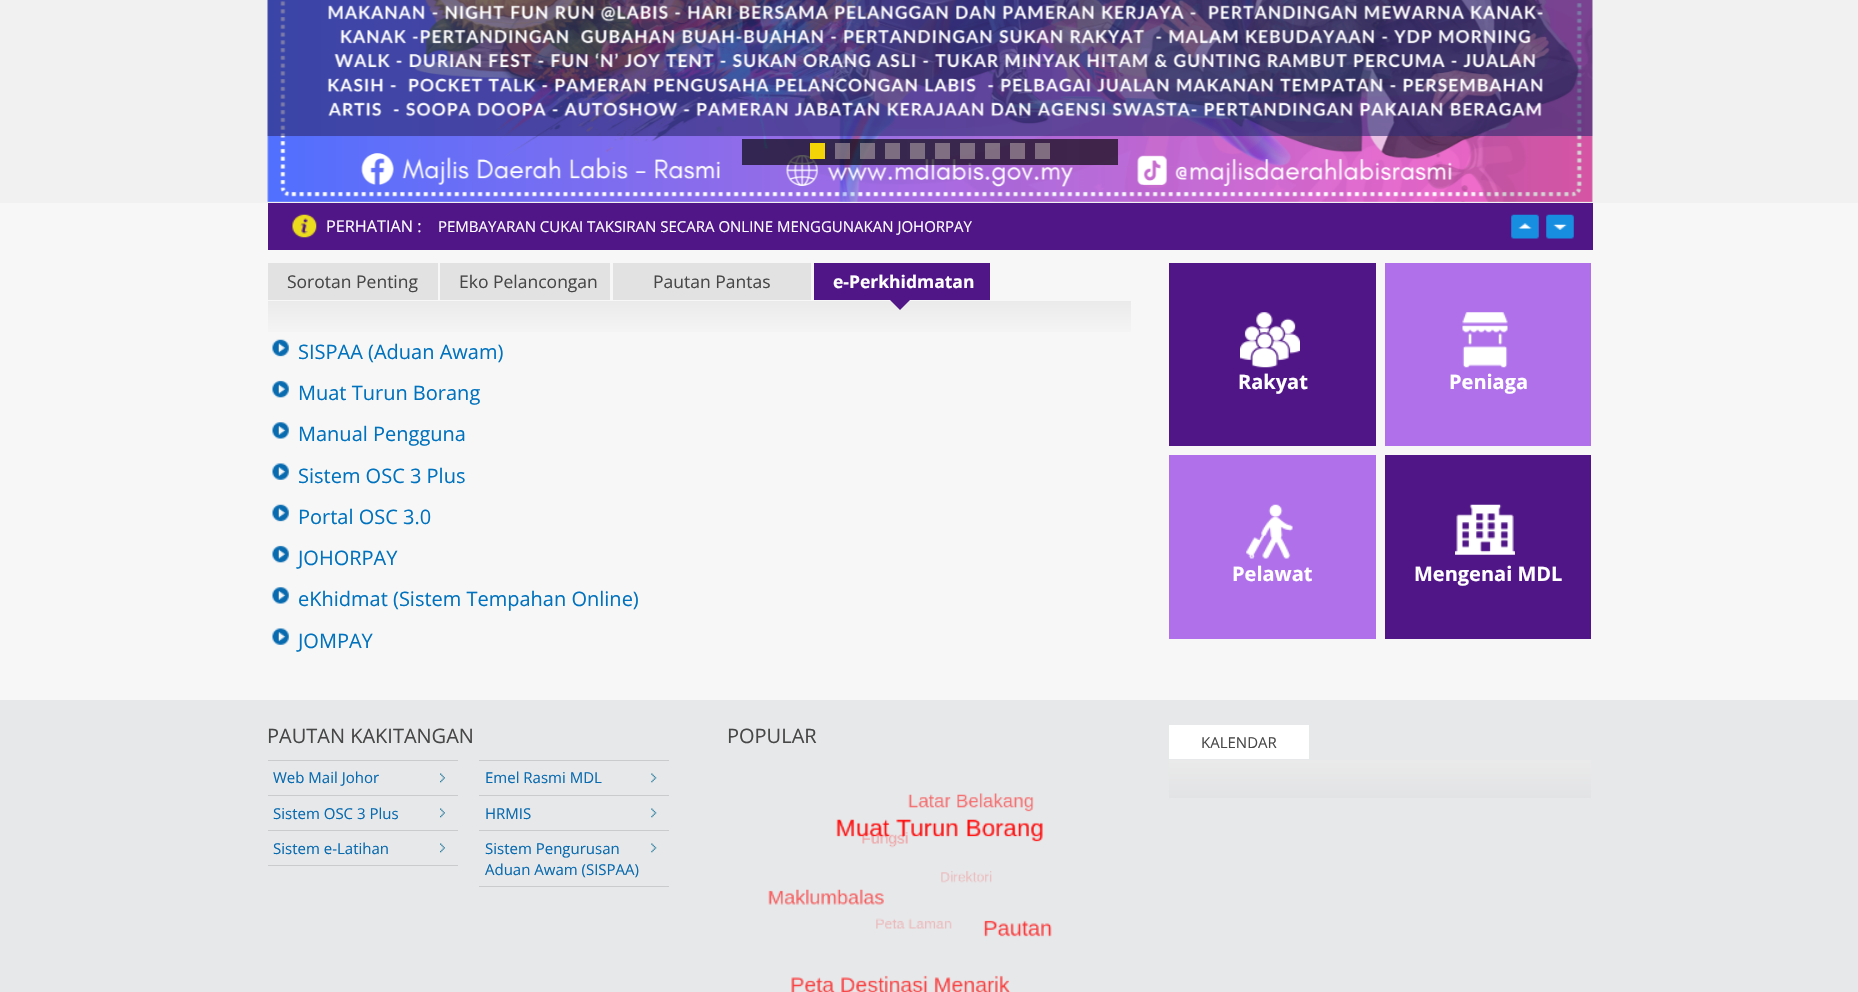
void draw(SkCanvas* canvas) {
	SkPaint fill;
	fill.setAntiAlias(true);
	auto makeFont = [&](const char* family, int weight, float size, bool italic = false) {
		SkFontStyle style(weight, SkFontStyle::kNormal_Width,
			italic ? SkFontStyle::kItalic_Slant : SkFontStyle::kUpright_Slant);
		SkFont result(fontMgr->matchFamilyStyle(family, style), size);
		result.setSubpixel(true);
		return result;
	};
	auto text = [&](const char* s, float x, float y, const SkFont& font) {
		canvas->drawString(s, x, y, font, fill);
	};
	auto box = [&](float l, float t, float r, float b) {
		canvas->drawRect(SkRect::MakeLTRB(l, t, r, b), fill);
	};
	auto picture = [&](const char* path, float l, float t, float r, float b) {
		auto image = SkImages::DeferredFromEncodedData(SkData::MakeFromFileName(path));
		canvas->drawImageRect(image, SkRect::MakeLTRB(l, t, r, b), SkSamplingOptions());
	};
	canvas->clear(0xFFF1F1F1);
	picture("image0.png", 267, 0, 1593, 202);
	fill.setColor(0xA6000000);
	box(742, 139, 1118, 165);
	fill.setColor(0xFFF3D407);
	box(810, 143, 825, 159);
	fill.setColor(0x80C5B5B5);
	box(835, 143, 850, 159);
	box(860, 143, 875, 159);
	fill.setColor(0xFF7E6E82);
	box(885, 143, 900, 159);
	box(910, 143, 925, 159);
	fill.setColor(0x80C5B5B5);
	box(935, 143, 950, 159);
	box(960, 143, 975, 159);
	box(985, 143, 1000, 159);
	box(1010, 143, 1025, 159);
	fill.setColor(0xFF816D80);
	box(1035, 143, 1050, 159);
	fill.setColor(0xFFF7F7F7);
	box(0, 203, 1858, 700);
	fill.setColor(0xFF501587);
	box(268, 203, 1593, 250);
	picture("image1.png", 292, 214, 317, 238);
	picture("image2.png", 1511, 214, 1539, 239);
	picture("image3.png", 1546, 214, 1574, 239);
	fill.setColor(0xFFE2E2E2);
	box(268, 263, 438, 300);
	box(440, 263, 610, 300);
	box(613, 263, 811, 300);
	fill.setColor(0xFF501587);
	box(814, 263, 990, 300);
	{
		const SkColor colors[] = {0xFFEAEAEA, 0xFFF7F7F7};
		const float stops[] = {0, 1};
		const SkPoint ends[] = {{699, 301}, {699, 339}};
		fill.setShader(SkGradientShader::MakeLinear(ends, colors, stops, 2, SkTileMode::kClamp));
		fill.setAlpha(255);
	}
	box(268, 301, 1131, 332);
	fill.setShader(nullptr);
	fill.setColor(0xFF501587);
	canvas->drawPath(SkPathBuilder().moveTo(890, 300).lineTo(910, 300).lineTo(900, 310).close().detach(), fill);
	picture("image4.png", 272, 339, 289, 357);
	picture("image5.png", 272, 380, 289, 398);
	picture("image6.png", 272, 422, 289, 439);
	picture("image7.png", 272, 463, 289, 480);
	picture("image4.png", 272, 504, 289, 522);
	picture("image5.png", 272, 545, 289, 563);
	picture("image6.png", 272, 587, 289, 604);
	picture("image7.png", 272, 628, 289, 645);
	box(1169, 263, 1376, 446);
	picture("image8.png", 1240, 312, 1300, 368);
	fill.setColor(0xFFAF70EA);
	box(1385, 263, 1591, 446);
	picture("image9.png", 1462, 312, 1508, 368);
	box(1169, 455, 1376, 639);
	picture("image10.png", 1246, 504, 1293, 559);
	fill.setColor(0xFF501587);
	box(1385, 455, 1591, 639);
	picture("image11.png", 1455, 504, 1515, 555);
	fill.setColor(0xFFE7E8EA);
	box(0, 700, 1858, 992);
	fill.setColor(0xFFCACBCD);
	box(268, 760, 458, 761);
	box(268, 795, 458, 796);
	picture("image12.png", 440, 773, 445, 783);
	box(479, 760, 669, 761);
	box(479, 795, 669, 796);
	picture("image13.png", 651, 773, 657, 783);
	box(268, 830, 458, 831);
	picture("image12.png", 440, 808, 445, 818);
	box(479, 830, 669, 831);
	picture("image13.png", 651, 808, 657, 818);
	box(268, 865, 458, 866);
	picture("image12.png", 440, 843, 445, 853);
	box(479, 886, 669, 887);
	picture("image13.png", 651, 843, 657, 853);
	picture("image14.png", 768, 793, 1052, 992);
	fill.setColor(0xFFFFFFFF);
	box(1169, 725, 1309, 759);
	{
		const SkColor colors[] = {0xFFEAEAEA, 0xFFE2E3E5};
		const float stops[] = {0, 1};
		const SkPoint ends[] = {{1380, 760}, {1380, 798}};
		fill.setShader(SkGradientShader::MakeLinear(ends, colors, stops, 2, SkTileMode::kClamp));
		fill.setAlpha(255);
	}
	box(1169, 760, 1591, 798);
	auto font1 = makeFont("Open Sans", 400, 16.25f);
	fill.setShader(nullptr);
	fill.setColor(0xFFFFFFFF);
	text("PERHATIAN :", 326, 232, font1);
	auto font2 = makeFont("Open Sans", 400, 15);
	text("PEMBAYARAN CUKAI TAKSIRAN SECARA ONLINE MENGGUNAKAN JOHORPAY", 438, 232, font2);
	auto font3 = makeFont("Open Sans", 400, 17.5f);
	fill.setColor(0xFF474747);
	text("Sorotan Penting", 287, 288, font3);
	text("Eko Pelancongan", 459, 288, font3);
	text("Pautan Pantas", 653, 288, font3);
	auto font4 = makeFont("Open Sans", 700, 17.5f);
	fill.setColor(0xFFFFFFFF);
	text("e-Perkhidmatan", 833, 288, font4);
	auto font5 = makeFont("Open Sans", 400, 20);
	fill.setColor(0xFF0072BE);
	text("SISPAA (Aduan Awam)", 298, 359, font5);
	text("Muat Turun Borang", 298, 400, font5);
	text("Manual Pengguna", 298, 441, font5);
	text("Sistem OSC 3 Plus", 298, 483, font5);
	text("Portal OSC 3.0", 298, 524, font5);
	text("JOHORPAY", 298, 565, font5);
	text("eKhidmat (Sistem Tempahan Online)", 298, 606, font5);
	text("JOMPAY", 298, 648, font5);
	auto font6 = makeFont("Open Sans", 700, 20);
	fill.setColor(0xFFFFFFFF);
	text("Rakyat", 1238, 389, font6);
	text("Peniaga", 1449, 389, font6);
	text("Pelawat", 1232, 581, font6);
	text("Mengenai MDL", 1414, 581, font6);
	fill.setColor(0xFF474747);
	text("PAUTAN KAKITANGAN", 267, 743, font5);
	fill.setColor(0xFF086AAF);
	text("Web Mail Johor", 273, 783, font2);
	text("Emel Rasmi MDL", 485, 783, font2);
	text("Sistem OSC 3 Plus", 273, 819, font2);
	text("HRMIS", 485, 819, font2);
	text("Sistem e-Latihan", 273, 854, font2);
	text("Sistem Pengurusan", 485, 854, font2);
	text("Aduan Awam (SISPAA)", 485, 875, font2);
	fill.setColor(0xFF474747);
	text("POPULAR", 727, 743, font5);
	text("KALENDAR", 1201, 748, font2);
}
